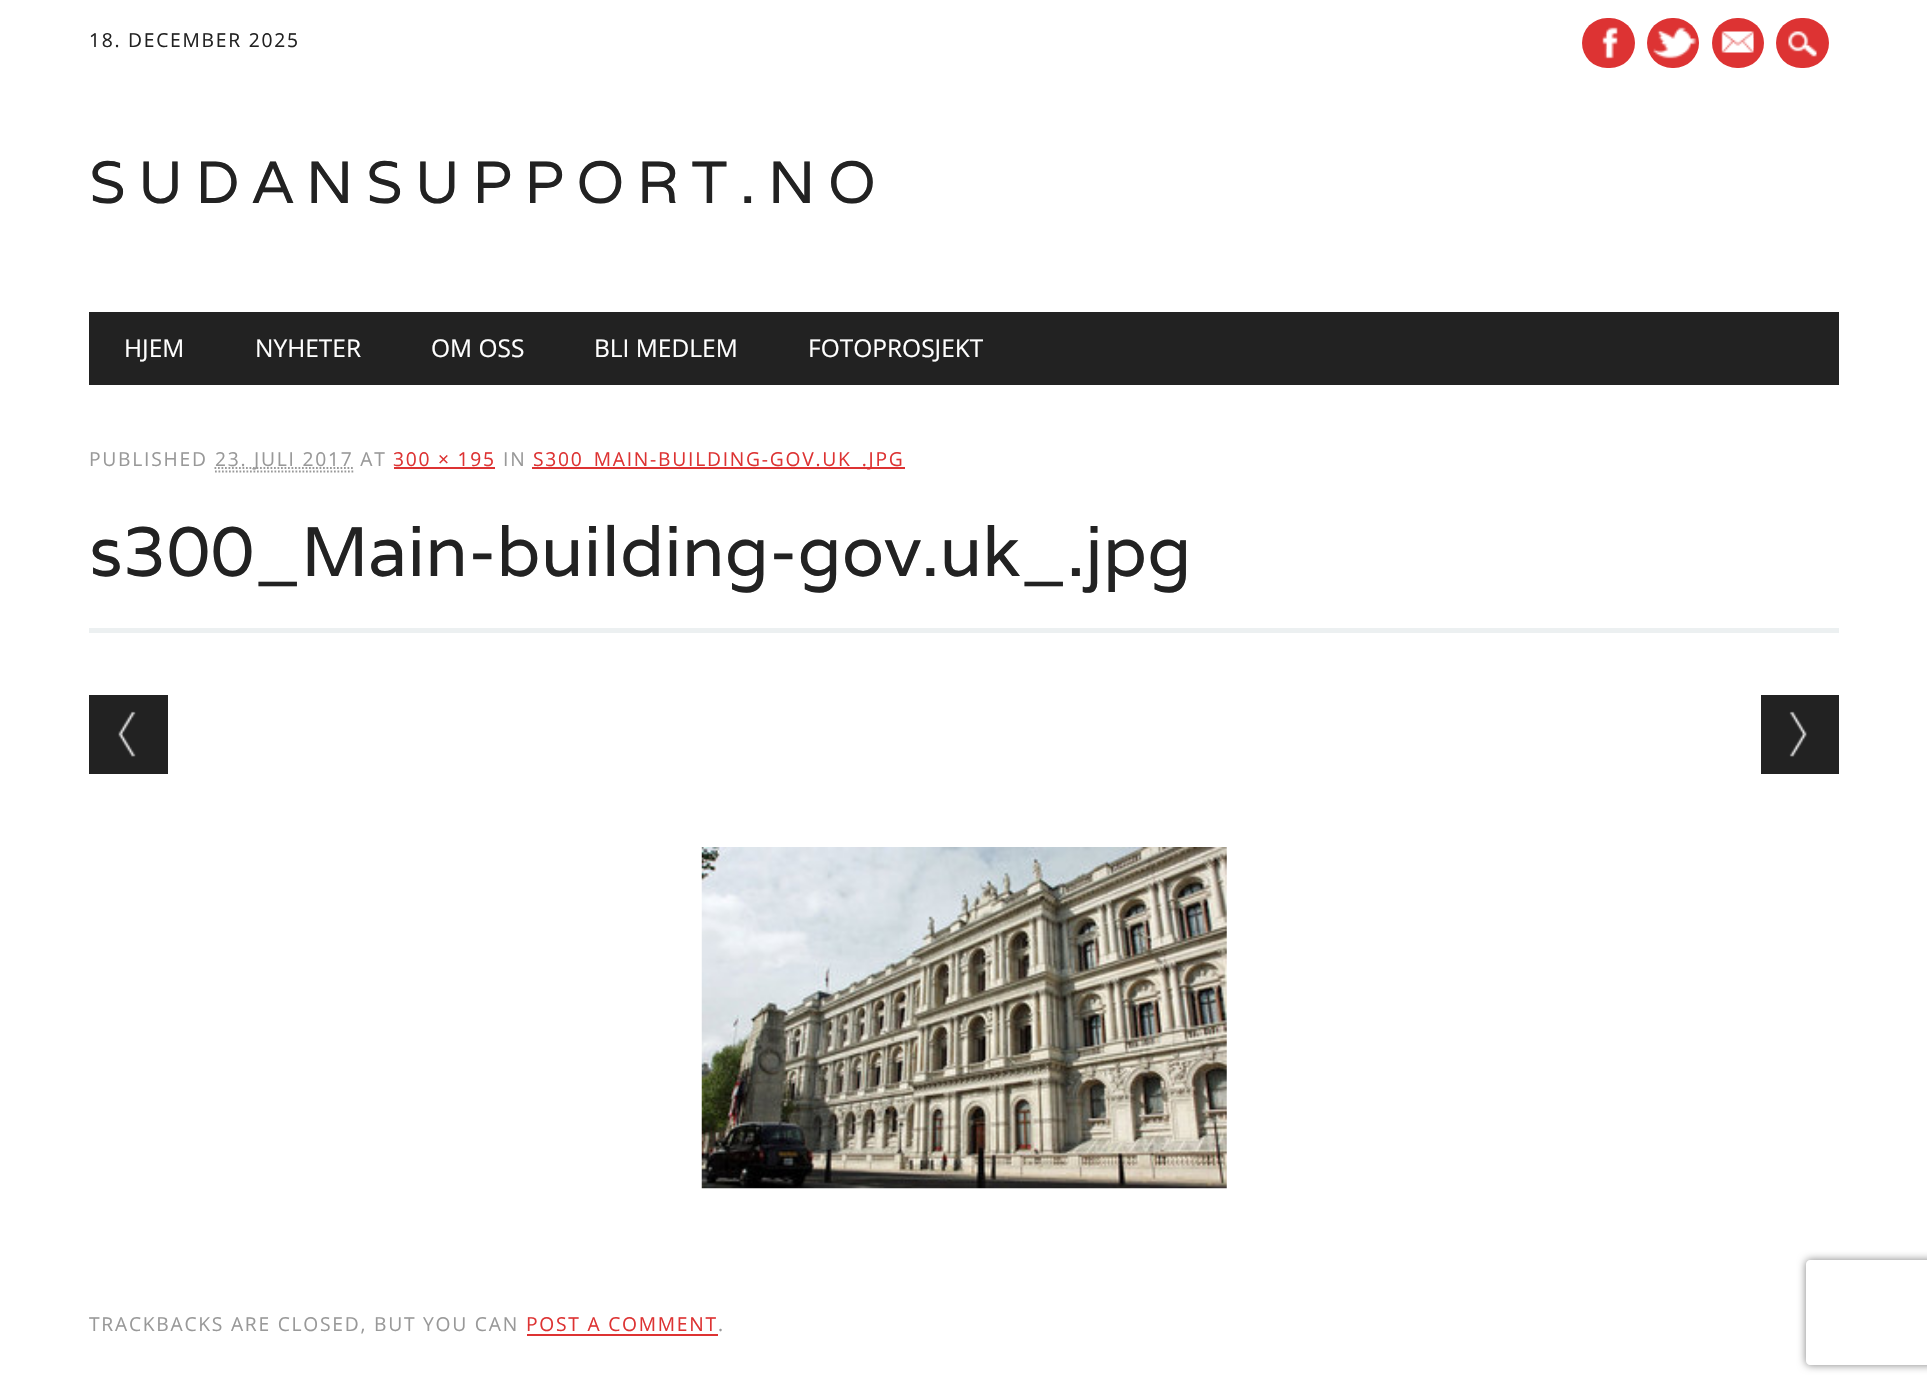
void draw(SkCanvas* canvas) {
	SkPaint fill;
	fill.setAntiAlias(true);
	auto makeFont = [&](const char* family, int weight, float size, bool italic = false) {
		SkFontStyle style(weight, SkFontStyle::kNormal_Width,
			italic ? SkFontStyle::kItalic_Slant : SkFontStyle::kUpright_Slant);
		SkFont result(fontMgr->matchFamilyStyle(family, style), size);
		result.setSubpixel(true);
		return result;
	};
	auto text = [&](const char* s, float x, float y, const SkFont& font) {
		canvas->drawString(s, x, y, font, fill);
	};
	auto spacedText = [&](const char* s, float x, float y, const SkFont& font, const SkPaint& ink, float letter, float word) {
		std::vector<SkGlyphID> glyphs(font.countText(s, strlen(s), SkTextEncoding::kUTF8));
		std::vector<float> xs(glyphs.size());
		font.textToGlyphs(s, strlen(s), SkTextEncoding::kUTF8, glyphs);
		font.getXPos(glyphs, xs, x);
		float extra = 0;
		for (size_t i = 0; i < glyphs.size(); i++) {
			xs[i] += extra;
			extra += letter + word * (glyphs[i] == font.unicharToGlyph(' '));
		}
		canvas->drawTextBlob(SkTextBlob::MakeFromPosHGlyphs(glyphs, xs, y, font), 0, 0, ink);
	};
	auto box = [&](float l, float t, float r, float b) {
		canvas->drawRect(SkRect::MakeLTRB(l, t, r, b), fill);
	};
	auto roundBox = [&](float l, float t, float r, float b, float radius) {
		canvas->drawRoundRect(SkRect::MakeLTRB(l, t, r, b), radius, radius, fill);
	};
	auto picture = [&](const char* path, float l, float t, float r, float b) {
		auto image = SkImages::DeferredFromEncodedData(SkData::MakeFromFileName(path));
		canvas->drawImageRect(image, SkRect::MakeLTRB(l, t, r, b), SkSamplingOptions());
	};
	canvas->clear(0xFFFFFFFF);
	fill.setColor(0xFFDD3333);
	roundBox(1582, 18, 1635, 68, 25);
	picture("image0.png", 1602, 27, 1618, 59);
	roundBox(1647, 18, 1699, 68, 25);
	picture("image1.png", 1653, 27, 1697, 59);
	roundBox(1712, 18, 1764, 68, 25);
	picture("image2.png", 1721, 31, 1754, 53);
	roundBox(1776, 18, 1829, 68, 25);
	picture("image3.png", 1788, 31, 1817, 57);
	fill.setColor(0xFF222222);
	box(89, 312, 1839, 385);
	fill.setStyle(SkPaint::kStroke_Style);
	fill.setStrokeWidth(1.8f);
	fill.setColor(0xFF999999);
	fill.setPathEffect(SkDashPathEffect::Make({{1.75f, 1.75f}}, 0));
	canvas->drawPath(SkPathBuilder().moveTo(215, 471.5f).lineTo(353.5f, 471.5f).detach(), fill);
	fill.setPathEffect(nullptr);
	fill.setPathEffect(SkDashPathEffect::Make({{1.75f, 1.75f}}, 0));
	canvas->drawPath(SkPathBuilder().moveTo(214.5f, 468).lineTo(353, 468).detach(), fill);
	fill.setPathEffect(nullptr);
	fill.setStyle(SkPaint::kFill_Style);
	fill.setColor(0xFFDD3333);
	box(394, 467, 495, 469);
	box(532, 467, 905, 469);
	fill.setColor(0xFFECF0F1);
	box(89, 628, 1839, 633);
	fill.setColor(0xFF222222);
	box(89, 695, 168, 774);
	picture("image4.png", 118, 711, 136, 757);
	box(1761, 695, 1839, 774);
	picture("image5.png", 1789, 711, 1807, 757);
	picture("image6.png", 701, 847, 1227, 1189);
	fill.setColor(0xFFDD3333);
	box(527, 1334, 718, 1336);
	canvas->save();
	canvas->clipPath(SkPathBuilder(SkPathFillType::kEvenOdd).moveTo(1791, 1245).lineTo(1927, 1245).lineTo(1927, 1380).lineTo(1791, 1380).close().moveTo(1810, 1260).lineTo(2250, 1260).cubicTo(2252, 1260, 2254, 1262, 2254, 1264).lineTo(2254, 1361).cubicTo(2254, 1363, 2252, 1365, 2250, 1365).lineTo(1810, 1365).cubicTo(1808, 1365, 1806, 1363, 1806, 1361).lineTo(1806, 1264).cubicTo(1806, 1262, 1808, 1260, 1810, 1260).close().detach(), true);
	fill.setColor(0xFF808080);
	fill.setMaskFilter(SkMaskFilter::MakeBlur(kNormal_SkBlurStyle, 4.5f));
	canvas->drawRoundRect(SkRect::MakeLTRB(1806, 1260, 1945, 1365), 4, 4, fill);
	fill.setMaskFilter(nullptr);
	canvas->restore();
	auto font1 = makeFont("Open Sans", 400, 19.25f);
	fill.setColor(0xFF222222);
	spacedText("18. DECEMBER 2025", 89, 47, font1, fill, 1.75f, 0);
	auto font2 = makeFont("Varela", 400, 59.5f);
	spacedText("SUDANSUPPORT.NO", 89, 203, font2, fill, 12.25f, 0);
	auto font3 = makeFont("Open Sans", 400, 24.5f);
	fill.setColor(0xFFFFFFFF);
	text("HJEM", 124, 357, font3);
	text("NYHETER", 255, 357, font3);
	text("OM OSS", 431, 357, font3);
	text("BLI MEDLEM", 594, 357, font3);
	text("FOTOPROSJEKT", 808, 357, font3);
	fill.setColor(0xFF999999);
	spacedText("PUBLISHED", 89, 466, font1, fill, 1.75f, 0);
	spacedText("23. JULI 2017 AT", 215, 466, font1, fill, 1.75f, 0);
	fill.setColor(0xFFDD3333);
	spacedText("300 × 195", 393, 466, font1, fill, 1.75f, 0);
	fill.setColor(0xFF999999);
	spacedText("IN", 503, 466, font1, fill, 1.75f, 0);
	fill.setColor(0xFFDD3333);
	spacedText("S300_MAIN-BUILDING-GOV.UK_.JPG", 533, 466, font1, fill, 1.75f, 0);
	auto font4 = makeFont("Varela", 400, 70);
	fill.setColor(0xFF222222);
	text("s300_Main-building-gov.uk_.jpg", 89, 576, font4);
	fill.setColor(0xFF999999);
	spacedText("TRACKBACKS ARE CLOSED, BUT YOU CAN", 89, 1331, font1, fill, 1.75f, 0);
	fill.setColor(0xFFDD3333);
	spacedText("POST A COMMENT", 526, 1331, font1, fill, 1.75f, 0);
	fill.setColor(0xFF999999);
	spacedText(".", 718, 1331, font1, fill, 1.75f, 0);
}
